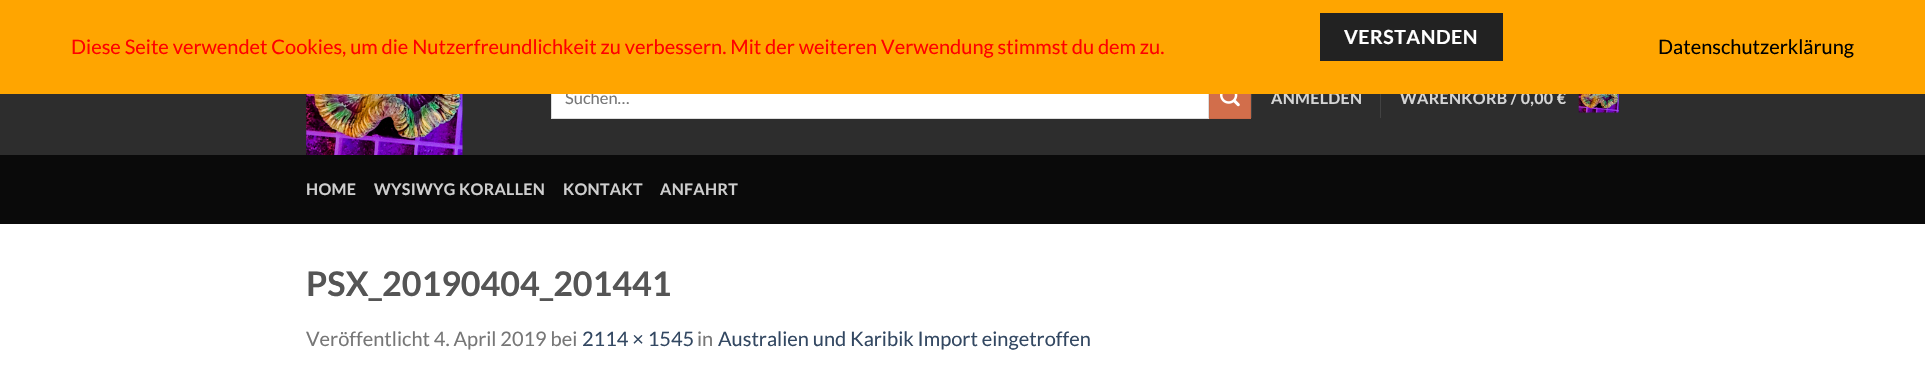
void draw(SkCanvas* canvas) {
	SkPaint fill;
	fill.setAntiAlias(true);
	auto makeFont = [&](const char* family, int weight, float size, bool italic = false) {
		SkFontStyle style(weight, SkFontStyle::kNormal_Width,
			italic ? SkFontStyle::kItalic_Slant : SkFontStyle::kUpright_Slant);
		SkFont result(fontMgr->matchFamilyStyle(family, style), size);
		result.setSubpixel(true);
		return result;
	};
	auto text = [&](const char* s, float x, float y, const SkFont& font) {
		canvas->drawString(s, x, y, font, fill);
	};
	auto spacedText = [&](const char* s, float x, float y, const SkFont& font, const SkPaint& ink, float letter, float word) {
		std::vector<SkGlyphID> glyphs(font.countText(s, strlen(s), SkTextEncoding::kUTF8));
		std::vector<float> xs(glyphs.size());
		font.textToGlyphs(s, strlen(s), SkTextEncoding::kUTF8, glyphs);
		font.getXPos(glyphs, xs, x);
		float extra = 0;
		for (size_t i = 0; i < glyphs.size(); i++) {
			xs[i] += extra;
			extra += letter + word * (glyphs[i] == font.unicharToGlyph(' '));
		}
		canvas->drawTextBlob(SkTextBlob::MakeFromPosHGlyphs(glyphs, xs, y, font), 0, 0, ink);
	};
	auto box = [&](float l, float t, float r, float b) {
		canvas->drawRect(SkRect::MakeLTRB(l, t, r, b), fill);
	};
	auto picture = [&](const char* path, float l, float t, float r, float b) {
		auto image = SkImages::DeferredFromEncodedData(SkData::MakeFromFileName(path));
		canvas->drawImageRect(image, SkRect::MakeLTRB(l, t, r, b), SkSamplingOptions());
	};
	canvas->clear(0xFFFFFFFF);
	fill.setColor(0xFF2D2D2D);
	box(0, 94, 1925, 155);
	picture("image0.png", 306, 94, 463, 155);
	fill.setColor(0xFFFFFFFF);
	box(552, 94, 1208, 118);
	fill.setStyle(SkPaint::kStroke_Style);
	fill.setStrokeWidth(1);
	fill.setColor(0xFFDDDDDD);
	canvas->drawRect(SkRect::MakeLTRB(551.5f, 78.5f, 1208.5f, 118.5f), fill);
	fill.setStyle(SkPaint::kFill_Style);
	fill.setColor(0xFFD26E4B);
	box(1210, 94, 1250, 118);
	fill.setStyle(SkPaint::kStroke_Style);
	fill.setColor(0xFFC86947);
	canvas->drawRect(SkRect::MakeLTRB(1209.5f, 78.5f, 1250.5f, 118.5f), fill);
	picture("image1.png", 1220, 94, 1240, 107);
	fill.setStyle(SkPaint::kFill_Style);
	fill.setColor(0xFF424242);
	box(1251, 94, 1252, 118);
	box(1380, 94, 1381, 118);
	picture("image2.png", 1578, 94, 1619, 113);
	fill.setColor(0xFF0A0A0A);
	box(0, 155, 1925, 224);
	auto font1 = makeFont("Lato", 400, 16.5f);
	fill.setColor(0xFF777777);
	text("Suchen…", 565, 104, font1);
	auto font2 = makeFont("Lato", 700, 16);
	fill.setColor(0xFFD5D5D5);
	spacedText("ANMELDEN", 1271, 104, font2, fill, 0.3f, 0);
	spacedText("WARENKORB / 0,00 €", 1400, 104, font2, fill, 0.3f, 0);
	fill.setColor(0xFFFFA500);
	box(0, 0, 1925, 94);
	fill.setColor(0xFF222222);
	box(1320, 13, 1503, 61);
	auto font3 = makeFont("Lato", 700, 19.5f);
	fill.setColor(0xFFFFFFFF);
	spacedText("VERSTANDEN", 1344, 44, font3, fill, 0.5f, 0);
	auto font4 = makeFont("Lato", 400, 20);
	fill.setColor(0xFF000000);
	text("Datenschutzerklärung", 1658, 54, font4);
	fill.setColor(0xFFFF0000);
	text("Diese Seite verwendet Cookies, um die Nutzerfreundlichkeit zu verbessern. Mit der weiteren Verwendung stimmst du dem zu.", 71, 54, font4);
	fill.setColor(0xFFCECECE);
	spacedText("HOME", 306, 195, font2, fill, 0.3f, 0);
	spacedText("WYSIWYG KORALLEN", 374, 195, font2, fill, 0.3f, 0);
	spacedText("KONTAKT", 563, 195, font2, fill, 0.3f, 0);
	spacedText("ANFAHRT", 660, 195, font2, fill, 0.3f, 0);
	auto font5 = makeFont("Lato", 700, 34);
	fill.setColor(0xFF555555);
	text("PSX_20190404_201441", 306, 296, font5);
	fill.setColor(0xFF777777);
	text("Veröffentlicht 4. April 2019 bei", 306, 346, font4);
	fill.setColor(0xFF334862);
	text("2114 × 1545", 582, 346, font4);
	fill.setColor(0xFF777777);
	text("in", 697, 346, font4);
	fill.setColor(0xFF334862);
	text("Australien und Karibik Import eingetroffen", 718, 346, font4);
}
